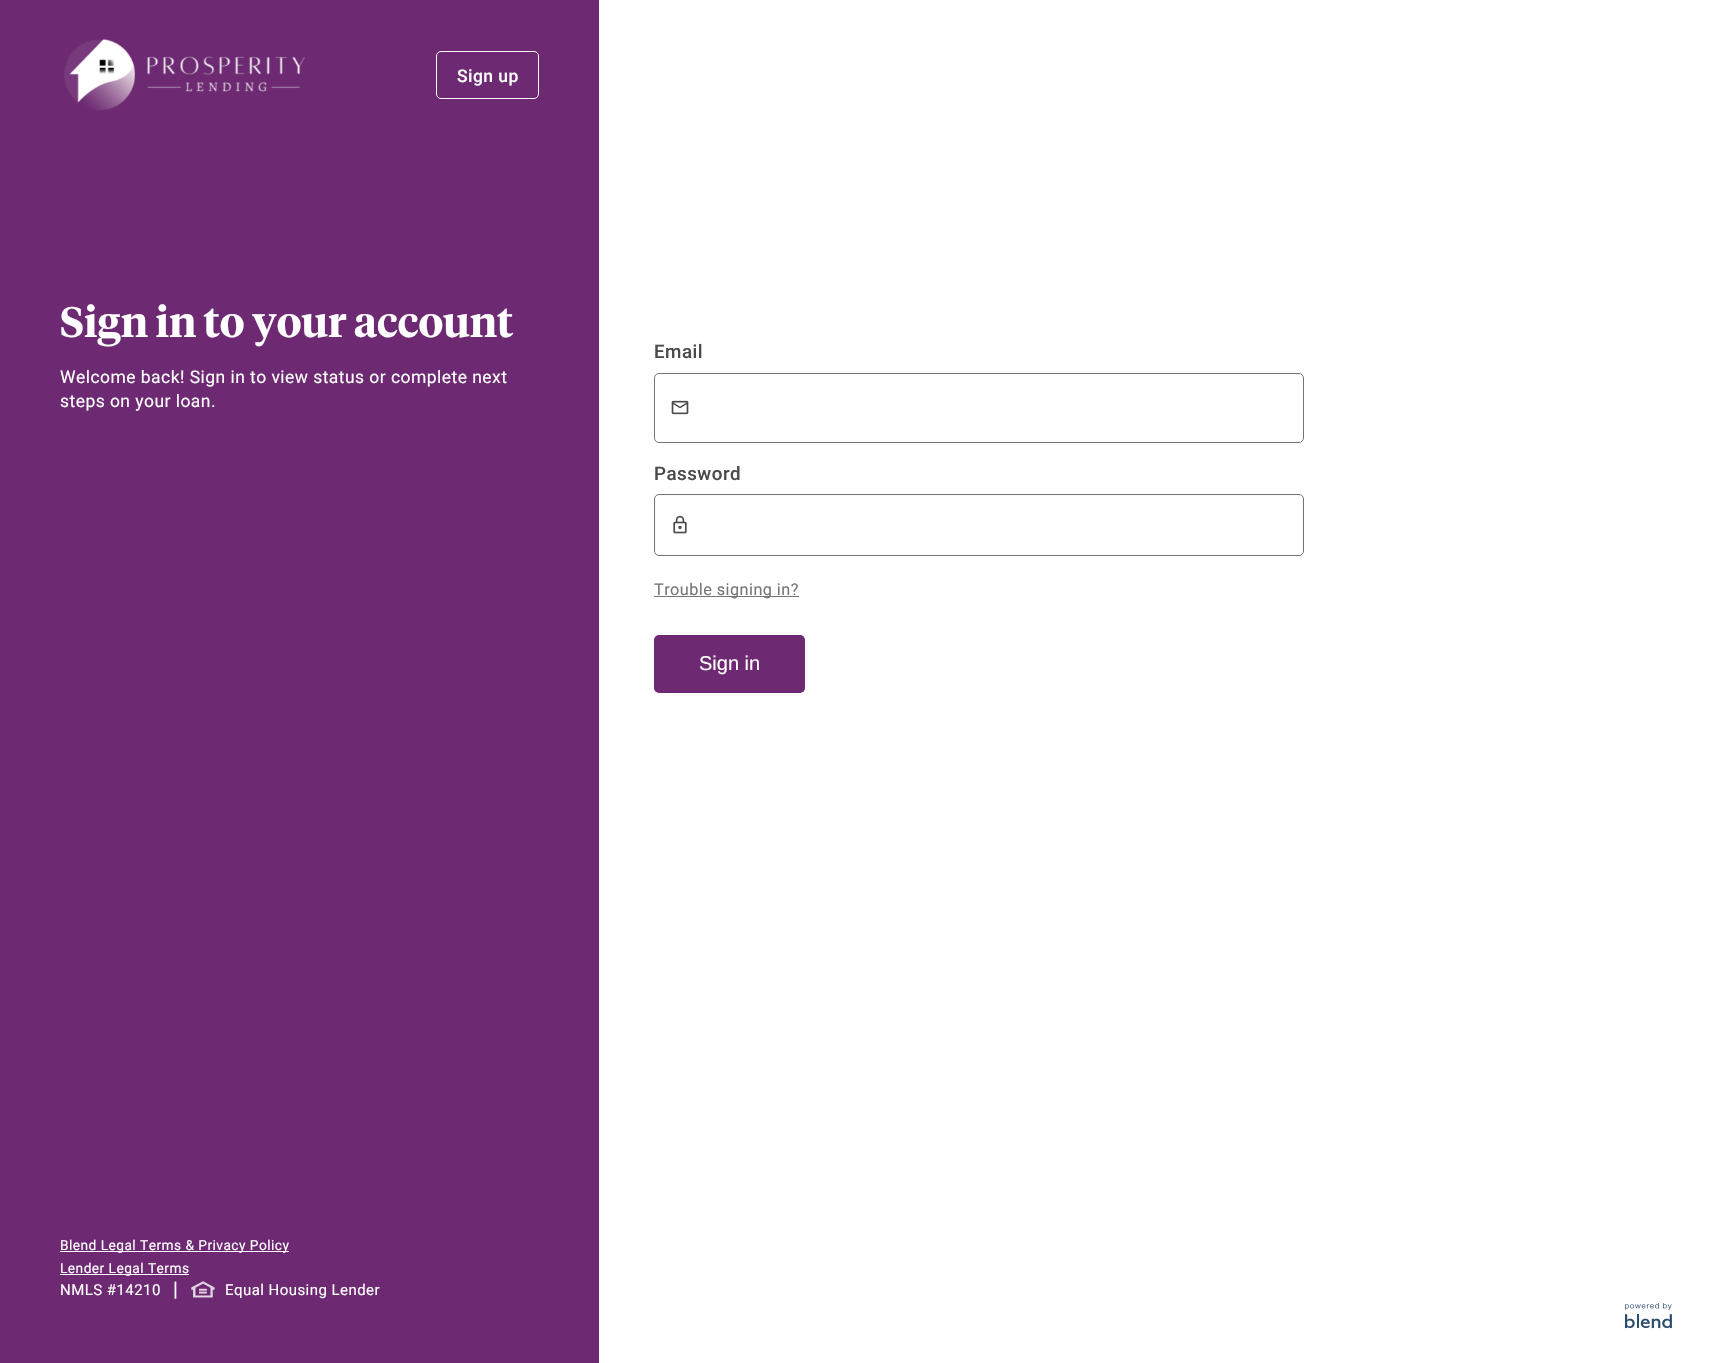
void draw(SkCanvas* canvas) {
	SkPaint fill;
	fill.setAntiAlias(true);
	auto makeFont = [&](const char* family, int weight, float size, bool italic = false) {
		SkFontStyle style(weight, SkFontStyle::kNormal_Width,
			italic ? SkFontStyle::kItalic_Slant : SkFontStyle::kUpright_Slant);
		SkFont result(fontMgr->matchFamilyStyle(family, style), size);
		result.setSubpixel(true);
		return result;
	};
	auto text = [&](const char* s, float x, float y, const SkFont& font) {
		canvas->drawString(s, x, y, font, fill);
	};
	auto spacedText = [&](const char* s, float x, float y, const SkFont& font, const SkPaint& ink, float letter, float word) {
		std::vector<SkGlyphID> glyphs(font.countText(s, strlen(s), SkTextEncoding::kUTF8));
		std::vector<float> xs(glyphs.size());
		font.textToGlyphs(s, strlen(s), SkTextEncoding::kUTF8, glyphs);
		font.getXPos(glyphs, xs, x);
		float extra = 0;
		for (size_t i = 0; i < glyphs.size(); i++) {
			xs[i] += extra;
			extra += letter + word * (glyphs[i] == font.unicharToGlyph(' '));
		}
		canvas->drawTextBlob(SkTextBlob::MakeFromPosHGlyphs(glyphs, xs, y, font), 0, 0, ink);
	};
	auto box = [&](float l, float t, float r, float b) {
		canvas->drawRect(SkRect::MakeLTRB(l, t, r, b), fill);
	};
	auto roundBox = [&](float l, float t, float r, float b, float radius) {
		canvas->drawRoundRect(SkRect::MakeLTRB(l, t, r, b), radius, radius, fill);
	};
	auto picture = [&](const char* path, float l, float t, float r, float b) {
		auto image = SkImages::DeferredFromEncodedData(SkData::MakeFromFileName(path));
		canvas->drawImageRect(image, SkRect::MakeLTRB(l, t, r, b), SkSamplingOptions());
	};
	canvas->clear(0xFF6D2A72);
	picture("image0.png", 64, 38, 305, 111);
	fill.setStyle(SkPaint::kStroke_Style);
	fill.setStrokeWidth(1);
	fill.setColor(0xFFFFFFFF);
	canvas->drawRoundRect(SkRect::MakeLTRB(436.5f, 51.5f, 538.5f, 98.5f), 4.5f, 4.5f, fill);
	fill.setStyle(SkPaint::kFill_Style);
	box(60, 1251, 289, 1252);
	box(60, 1274, 189, 1275);
	picture("image1.png", 191, 1281, 215, 1298);
	box(599, 0, 1709, 1363);
	fill.setStyle(SkPaint::kStroke_Style);
	fill.setColor(0xFF757575);
	canvas->drawRoundRect(SkRect::MakeLTRB(654.5f, 373.5f, 1303.5f, 442.5f), 4.5f, 4.5f, fill);
	picture("image2.png", 671, 400, 689, 415);
	fill.setColor(0xFFFAFAFA);
	canvas->drawRoundRect(SkRect::MakeLTRB(655.5f, 495.5f, 1302.5f, 554.5f), 3.5f, 3.5f, fill);
	fill.setColor(0xFF757575);
	canvas->drawRoundRect(SkRect::MakeLTRB(654.5f, 494.5f, 1303.5f, 555.5f), 4.5f, 4.5f, fill);
	picture("image3.png", 673, 515, 687, 534);
	fill.setStyle(SkPaint::kFill_Style);
	box(654, 596, 799, 597);
	fill.setColor(0xFF6D2A72);
	roundBox(654, 635, 805, 693, 5);
	picture("image4.png", 1625, 1303, 1672, 1329);
	auto font1 = makeFont("Roboto", 500, 17.5f);
	fill.setColor(0xFFFFFFFF);
	spacedText("Sign up", 457, 82, font1, fill, 0.45f, 0);
	auto font2 = makeFont("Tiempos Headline", 600, 42.5f);
	spacedText("Sign in to your account", 60, 337, font2, fill, 0.1f, -0.5f);
	auto font3 = makeFont("Roboto", 400, 17.5f);
	spacedText("Welcome back! Sign in to view status or complete next", 60, 383, font3, fill, 0.45f, 0);
	spacedText("steps on your loan.", 60, 407, font3, fill, 0.45f, 0);
	auto font4 = makeFont("Roboto", 400, 13.75f);
	spacedText("Blend Legal Terms & Privacy Policy", 60, 1250, font4, fill, 0.45f, 0);
	spacedText("Lender Legal Terms", 60, 1273, font4, fill, 0.45f, 0);
	auto font5 = makeFont("Roboto", 400, 15);
	spacedText("NMLS #14210", 60, 1295, font5, fill, 0.45f, 0);
	auto font6 = makeFont("Roboto", 400, 20);
	spacedText("|", 173, 1296, font6, fill, 0.45f, 0);
	spacedText("Equal Housing Lender", 225, 1295, font5, fill, 0.45f, 0);
	auto font7 = makeFont("Roboto", 500, 18.75f);
	fill.setColor(0xFF4A4A4A);
	spacedText("Email", 654, 358, font7, fill, 0.5f, 0);
	spacedText("Password", 654, 480, font7, fill, 0.5f, 0);
	auto font8 = makeFont("Roboto", 400, 16.25f);
	fill.setColor(0xFF757575);
	spacedText("Trouble signing in?", 654, 595, font8, fill, 0.45f, 0);
	auto font9 = makeFont("Liberation Sans", 400, 20);
	fill.setColor(0xFFFFFFFF);
	text("Sign in", 699, 670, font9);
}
